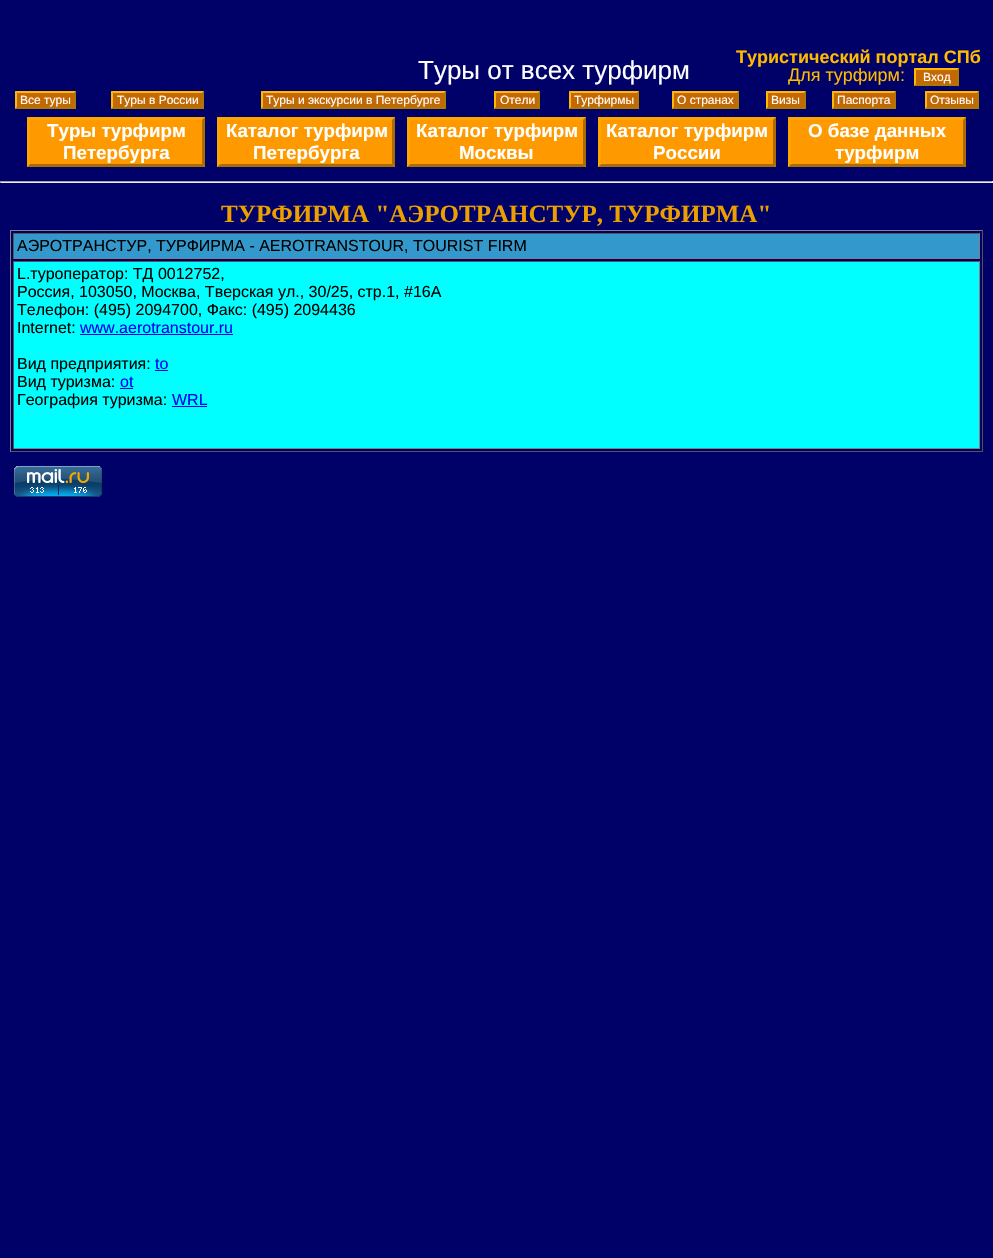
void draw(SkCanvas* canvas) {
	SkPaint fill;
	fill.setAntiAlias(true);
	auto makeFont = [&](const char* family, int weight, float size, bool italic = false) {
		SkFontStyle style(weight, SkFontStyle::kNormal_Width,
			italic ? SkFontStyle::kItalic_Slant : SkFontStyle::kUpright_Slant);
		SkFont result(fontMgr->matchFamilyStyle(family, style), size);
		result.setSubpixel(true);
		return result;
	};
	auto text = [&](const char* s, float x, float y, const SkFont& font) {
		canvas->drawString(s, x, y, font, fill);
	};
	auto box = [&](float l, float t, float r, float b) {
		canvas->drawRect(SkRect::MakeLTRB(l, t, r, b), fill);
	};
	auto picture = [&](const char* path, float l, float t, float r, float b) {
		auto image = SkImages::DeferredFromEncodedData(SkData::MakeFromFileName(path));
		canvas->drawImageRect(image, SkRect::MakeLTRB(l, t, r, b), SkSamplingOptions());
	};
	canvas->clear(0xFF000069);
	fill.setColor(0xFFC46802);
	box(914, 68, 959, 86);
	fill.setColor(0xFFFDB906);
	canvas->drawPath(SkPathBuilder().moveTo(914, 68).lineTo(959, 68).lineTo(957, 70).lineTo(916, 70).close().detach(), fill);
	fill.setColor(0xFFA97B04);
	canvas->drawPath(SkPathBuilder().moveTo(959, 68).lineTo(959, 86).lineTo(957, 84).lineTo(957, 70).close().detach(), fill);
	canvas->drawPath(SkPathBuilder().moveTo(959, 86).lineTo(914, 86).lineTo(916, 84).lineTo(957, 84).close().detach(), fill);
	fill.setColor(0xFFFDB906);
	canvas->drawPath(SkPathBuilder().moveTo(914, 86).lineTo(914, 68).lineTo(916, 70).lineTo(916, 84).close().detach(), fill);
	fill.setColor(0xFFC46802);
	box(15, 91, 76, 109);
	fill.setColor(0xFFFDB906);
	canvas->drawPath(SkPathBuilder().moveTo(15, 91).lineTo(76, 91).lineTo(74, 93).lineTo(17, 93).close().detach(), fill);
	fill.setColor(0xFFA97B04);
	canvas->drawPath(SkPathBuilder().moveTo(76, 91).lineTo(76, 109).lineTo(74, 107).lineTo(74, 93).close().detach(), fill);
	canvas->drawPath(SkPathBuilder().moveTo(76, 109).lineTo(15, 109).lineTo(17, 107).lineTo(74, 107).close().detach(), fill);
	fill.setColor(0xFFFDB906);
	canvas->drawPath(SkPathBuilder().moveTo(15, 109).lineTo(15, 91).lineTo(17, 93).lineTo(17, 107).close().detach(), fill);
	fill.setColor(0xFFC46802);
	box(111, 91, 204, 109);
	fill.setColor(0xFFFDB906);
	canvas->drawPath(SkPathBuilder().moveTo(111, 91).lineTo(204, 91).lineTo(202, 93).lineTo(113, 93).close().detach(), fill);
	fill.setColor(0xFFA97B04);
	canvas->drawPath(SkPathBuilder().moveTo(204, 91).lineTo(204, 109).lineTo(202, 107).lineTo(202, 93).close().detach(), fill);
	canvas->drawPath(SkPathBuilder().moveTo(204, 109).lineTo(111, 109).lineTo(113, 107).lineTo(202, 107).close().detach(), fill);
	fill.setColor(0xFFFDB906);
	canvas->drawPath(SkPathBuilder().moveTo(111, 109).lineTo(111, 91).lineTo(113, 93).lineTo(113, 107).close().detach(), fill);
	fill.setColor(0xFFC46802);
	box(261, 91, 446, 109);
	fill.setColor(0xFFFDB906);
	canvas->drawPath(SkPathBuilder().moveTo(261, 91).lineTo(446, 91).lineTo(444, 93).lineTo(263, 93).close().detach(), fill);
	fill.setColor(0xFFA97B04);
	canvas->drawPath(SkPathBuilder().moveTo(446, 91).lineTo(446, 109).lineTo(444, 107).lineTo(444, 93).close().detach(), fill);
	canvas->drawPath(SkPathBuilder().moveTo(446, 109).lineTo(261, 109).lineTo(263, 107).lineTo(444, 107).close().detach(), fill);
	fill.setColor(0xFFFDB906);
	canvas->drawPath(SkPathBuilder().moveTo(261, 109).lineTo(261, 91).lineTo(263, 93).lineTo(263, 107).close().detach(), fill);
	fill.setColor(0xFFC46802);
	box(494, 91, 540, 109);
	fill.setColor(0xFFFDB906);
	canvas->drawPath(SkPathBuilder().moveTo(494, 91).lineTo(540, 91).lineTo(538, 93).lineTo(496, 93).close().detach(), fill);
	fill.setColor(0xFFA97B04);
	canvas->drawPath(SkPathBuilder().moveTo(540, 91).lineTo(540, 109).lineTo(538, 107).lineTo(538, 93).close().detach(), fill);
	canvas->drawPath(SkPathBuilder().moveTo(540, 109).lineTo(494, 109).lineTo(496, 107).lineTo(538, 107).close().detach(), fill);
	fill.setColor(0xFFFDB906);
	canvas->drawPath(SkPathBuilder().moveTo(494, 109).lineTo(494, 91).lineTo(496, 93).lineTo(496, 107).close().detach(), fill);
	fill.setColor(0xFFC46802);
	box(569, 91, 639, 109);
	fill.setColor(0xFFFDB906);
	canvas->drawPath(SkPathBuilder().moveTo(569, 91).lineTo(639, 91).lineTo(637, 93).lineTo(571, 93).close().detach(), fill);
	fill.setColor(0xFFA97B04);
	canvas->drawPath(SkPathBuilder().moveTo(639, 91).lineTo(639, 109).lineTo(637, 107).lineTo(637, 93).close().detach(), fill);
	canvas->drawPath(SkPathBuilder().moveTo(639, 109).lineTo(569, 109).lineTo(571, 107).lineTo(637, 107).close().detach(), fill);
	fill.setColor(0xFFFDB906);
	canvas->drawPath(SkPathBuilder().moveTo(569, 109).lineTo(569, 91).lineTo(571, 93).lineTo(571, 107).close().detach(), fill);
	fill.setColor(0xFFC46802);
	box(672, 91, 739, 109);
	fill.setColor(0xFFFDB906);
	canvas->drawPath(SkPathBuilder().moveTo(672, 91).lineTo(739, 91).lineTo(737, 93).lineTo(674, 93).close().detach(), fill);
	fill.setColor(0xFFA97B04);
	canvas->drawPath(SkPathBuilder().moveTo(739, 91).lineTo(739, 109).lineTo(737, 107).lineTo(737, 93).close().detach(), fill);
	canvas->drawPath(SkPathBuilder().moveTo(739, 109).lineTo(672, 109).lineTo(674, 107).lineTo(737, 107).close().detach(), fill);
	fill.setColor(0xFFFDB906);
	canvas->drawPath(SkPathBuilder().moveTo(672, 109).lineTo(672, 91).lineTo(674, 93).lineTo(674, 107).close().detach(), fill);
	fill.setColor(0xFFC46802);
	box(766, 91, 806, 109);
	fill.setColor(0xFFFDB906);
	canvas->drawPath(SkPathBuilder().moveTo(766, 91).lineTo(806, 91).lineTo(804, 93).lineTo(768, 93).close().detach(), fill);
	fill.setColor(0xFFA97B04);
	canvas->drawPath(SkPathBuilder().moveTo(806, 91).lineTo(806, 109).lineTo(804, 107).lineTo(804, 93).close().detach(), fill);
	canvas->drawPath(SkPathBuilder().moveTo(806, 109).lineTo(766, 109).lineTo(768, 107).lineTo(804, 107).close().detach(), fill);
	fill.setColor(0xFFFDB906);
	canvas->drawPath(SkPathBuilder().moveTo(766, 109).lineTo(766, 91).lineTo(768, 93).lineTo(768, 107).close().detach(), fill);
	fill.setColor(0xFFC46802);
	box(832, 91, 896, 109);
	fill.setColor(0xFFFDB906);
	canvas->drawPath(SkPathBuilder().moveTo(832, 91).lineTo(896, 91).lineTo(894, 93).lineTo(834, 93).close().detach(), fill);
	fill.setColor(0xFFA97B04);
	canvas->drawPath(SkPathBuilder().moveTo(896, 91).lineTo(896, 109).lineTo(894, 107).lineTo(894, 93).close().detach(), fill);
	canvas->drawPath(SkPathBuilder().moveTo(896, 109).lineTo(832, 109).lineTo(834, 107).lineTo(894, 107).close().detach(), fill);
	fill.setColor(0xFFFDB906);
	canvas->drawPath(SkPathBuilder().moveTo(832, 109).lineTo(832, 91).lineTo(834, 93).lineTo(834, 107).close().detach(), fill);
	fill.setColor(0xFFC46802);
	box(925, 91, 979, 109);
	fill.setColor(0xFFFDB906);
	canvas->drawPath(SkPathBuilder().moveTo(925, 91).lineTo(979, 91).lineTo(977, 93).lineTo(927, 93).close().detach(), fill);
	fill.setColor(0xFFA97B04);
	canvas->drawPath(SkPathBuilder().moveTo(979, 91).lineTo(979, 109).lineTo(977, 107).lineTo(977, 93).close().detach(), fill);
	canvas->drawPath(SkPathBuilder().moveTo(979, 109).lineTo(925, 109).lineTo(927, 107).lineTo(977, 107).close().detach(), fill);
	fill.setColor(0xFFFDB906);
	canvas->drawPath(SkPathBuilder().moveTo(925, 109).lineTo(925, 91).lineTo(927, 93).lineTo(927, 107).close().detach(), fill);
	fill.setColor(0xFFFF9900);
	box(27, 117, 205, 167);
	fill.setColor(0xFFFFA500);
	canvas->drawPath(SkPathBuilder().moveTo(27, 117).lineTo(205, 117).lineTo(202, 120).lineTo(30, 120).close().detach(), fill);
	fill.setColor(0xFFAA6E00);
	canvas->drawPath(SkPathBuilder().moveTo(205, 117).lineTo(205, 167).lineTo(202, 164).lineTo(202, 120).close().detach(), fill);
	canvas->drawPath(SkPathBuilder().moveTo(205, 167).lineTo(27, 167).lineTo(30, 164).lineTo(202, 164).close().detach(), fill);
	fill.setColor(0xFFFFA500);
	canvas->drawPath(SkPathBuilder().moveTo(27, 167).lineTo(27, 117).lineTo(30, 120).lineTo(30, 164).close().detach(), fill);
	fill.setColor(0xFFFF9900);
	box(217, 117, 395, 167);
	fill.setColor(0xFFFFA500);
	canvas->drawPath(SkPathBuilder().moveTo(217, 117).lineTo(395, 117).lineTo(392, 120).lineTo(220, 120).close().detach(), fill);
	fill.setColor(0xFFAA6E00);
	canvas->drawPath(SkPathBuilder().moveTo(395, 117).lineTo(395, 167).lineTo(392, 164).lineTo(392, 120).close().detach(), fill);
	canvas->drawPath(SkPathBuilder().moveTo(395, 167).lineTo(217, 167).lineTo(220, 164).lineTo(392, 164).close().detach(), fill);
	fill.setColor(0xFFFFA500);
	canvas->drawPath(SkPathBuilder().moveTo(217, 167).lineTo(217, 117).lineTo(220, 120).lineTo(220, 164).close().detach(), fill);
	fill.setColor(0xFFFF9900);
	box(407, 117, 586, 167);
	fill.setColor(0xFFFFA500);
	canvas->drawPath(SkPathBuilder().moveTo(407, 117).lineTo(586, 117).lineTo(583, 120).lineTo(410, 120).close().detach(), fill);
	fill.setColor(0xFFAA6E00);
	canvas->drawPath(SkPathBuilder().moveTo(586, 117).lineTo(586, 167).lineTo(583, 164).lineTo(583, 120).close().detach(), fill);
	canvas->drawPath(SkPathBuilder().moveTo(586, 167).lineTo(407, 167).lineTo(410, 164).lineTo(583, 164).close().detach(), fill);
	fill.setColor(0xFFFFA500);
	canvas->drawPath(SkPathBuilder().moveTo(407, 167).lineTo(407, 117).lineTo(410, 120).lineTo(410, 164).close().detach(), fill);
	fill.setColor(0xFFFF9900);
	box(598, 117, 776, 167);
	fill.setColor(0xFFFFA500);
	canvas->drawPath(SkPathBuilder().moveTo(598, 117).lineTo(776, 117).lineTo(773, 120).lineTo(601, 120).close().detach(), fill);
	fill.setColor(0xFFAA6E00);
	canvas->drawPath(SkPathBuilder().moveTo(776, 117).lineTo(776, 167).lineTo(773, 164).lineTo(773, 120).close().detach(), fill);
	canvas->drawPath(SkPathBuilder().moveTo(776, 167).lineTo(598, 167).lineTo(601, 164).lineTo(773, 164).close().detach(), fill);
	fill.setColor(0xFFFFA500);
	canvas->drawPath(SkPathBuilder().moveTo(598, 167).lineTo(598, 117).lineTo(601, 120).lineTo(601, 164).close().detach(), fill);
	fill.setColor(0xFFFF9900);
	box(788, 117, 966, 167);
	fill.setColor(0xFFFFA500);
	canvas->drawPath(SkPathBuilder().moveTo(788, 117).lineTo(966, 117).lineTo(963, 120).lineTo(791, 120).close().detach(), fill);
	fill.setColor(0xFFAA6E00);
	canvas->drawPath(SkPathBuilder().moveTo(966, 117).lineTo(966, 167).lineTo(963, 164).lineTo(963, 120).close().detach(), fill);
	canvas->drawPath(SkPathBuilder().moveTo(966, 167).lineTo(788, 167).lineTo(791, 164).lineTo(963, 164).close().detach(), fill);
	fill.setColor(0xFFFFA500);
	canvas->drawPath(SkPathBuilder().moveTo(788, 167).lineTo(788, 117).lineTo(791, 120).lineTo(791, 164).close().detach(), fill);
	fill.setColor(0xFF9F9F9F);
	box(0, 181, 993, 182);
	fill.setColor(0xFFEEEEEE);
	box(992, 181, 993, 183);
	box(0, 182, 993, 183);
	fill.setColor(0xFF9F9F9F);
	box(0, 181, 1, 183);
	fill.setColor(0xFF808080);
	box(10, 230, 983, 231);
	fill.setColor(0xFF555555);
	box(982, 230, 983, 452);
	box(10, 451, 983, 452);
	fill.setColor(0xFF808080);
	box(10, 230, 11, 452);
	fill.setColor(0xFF3399CC);
	box(14, 234, 979, 258);
	fill.setColor(0xFF555555);
	box(13, 233, 980, 234);
	fill.setColor(0xFF808080);
	box(979, 233, 980, 259);
	box(13, 258, 980, 259);
	fill.setColor(0xFF555555);
	box(13, 233, 14, 259);
	fill.setColor(0xFF00FFFF);
	box(14, 262, 979, 448);
	fill.setColor(0xFF555555);
	box(13, 261, 980, 262);
	fill.setColor(0xFF808080);
	box(979, 261, 980, 449);
	box(13, 448, 980, 449);
	fill.setColor(0xFF555555);
	box(13, 261, 14, 449);
	fill.setColor(0xFF0000EE);
	box(80, 334, 233, 335);
	box(155, 370, 168, 371);
	box(120, 388, 133, 389);
	box(172, 406, 207, 407);
	picture("image0.png", 14, 466, 102, 497);
	auto font1 = makeFont("Liberation Sans", 700, 18);
	fill.setColor(0xFFFFBB00);
	text("Туристический портал СПб", 736, 63, font1);
	auto font2 = makeFont("Liberation Sans", 400, 26);
	fill.setColor(0xFFFFFFFF);
	text("Туры от всех турфирм", 418, 79, font2);
	auto font3 = makeFont("Liberation Sans", 400, 18);
	fill.setColor(0xFFFFBB00);
	text("Для турфирм:", 788, 81, font3);
	auto font4 = makeFont("Liberation Sans", 400, 12);
	fill.setColor(0xFFFFFFFF);
	text("Вход", 923, 81, font4);
	text("Все туры", 20, 104, font4);
	text("Туры в России", 117, 104, font4);
	text("Туры и экскурсии в Петербурге", 266, 104, font4);
	text("Отели", 500, 104, font4);
	text("Турфирмы", 574, 104, font4);
	text("О странах", 677, 104, font4);
	text("Визы", 771, 104, font4);
	text("Паспорта", 837, 104, font4);
	text("Отзывы", 930, 104, font4);
	auto font5 = makeFont("Liberation Sans", 700, 18.75f);
	text("Туры турфирм", 47, 137, font5);
	text("Петербурга", 63, 159, font5);
	text("Каталог турфирм", 226, 137, font5);
	text("Петербурга", 253, 159, font5);
	text("Каталог турфирм", 416, 137, font5);
	text("Москвы", 459, 159, font5);
	text("Каталог турфирм", 606, 137, font5);
	text("России", 653, 159, font5);
	text("О базе данных", 808, 137, font5);
	text("турфирм", 835, 159, font5);
	auto font6 = makeFont("Liberation Serif", 700, 25);
	fill.setColor(0xFFEB9F01);
	text("ТУРФИРМА \"АЭРОТРАНСТУР, ТУРФИРМА\"", 221, 222, font6);
	auto font7 = makeFont("Liberation Sans", 400, 16);
	fill.setColor(0xFF000000);
	text("АЭРОТРАНСТУР, ТУРФИРМА - AEROTRANSTOUR, TOURIST FIRM", 17, 251, font7);
	text("L.туроператор: ТД 0012752,", 17, 279, font7);
	text("Россия, 103050, Москва, Тверская ул., 30/25, стр.1, #16А", 17, 297, font7);
	text("Телефон: (495) 2094700, Факс: (495) 2094436", 17, 315, font7);
	text("Internet:", 17, 333, font7);
	fill.setColor(0xFF0000EE);
	text("www.aerotranstour.ru", 80, 333, font7);
	fill.setColor(0xFF000000);
	text("Вид предприятия:", 17, 369, font7);
	fill.setColor(0xFF0000EE);
	text("to", 155, 369, font7);
	fill.setColor(0xFF000000);
	text("Вид туризма:", 17, 387, font7);
	fill.setColor(0xFF0000EE);
	text("ot", 120, 387, font7);
	fill.setColor(0xFF000000);
	text("География туризма:", 17, 405, font7);
	fill.setColor(0xFF0000EE);
	text("WRL", 172, 405, font7);
}
